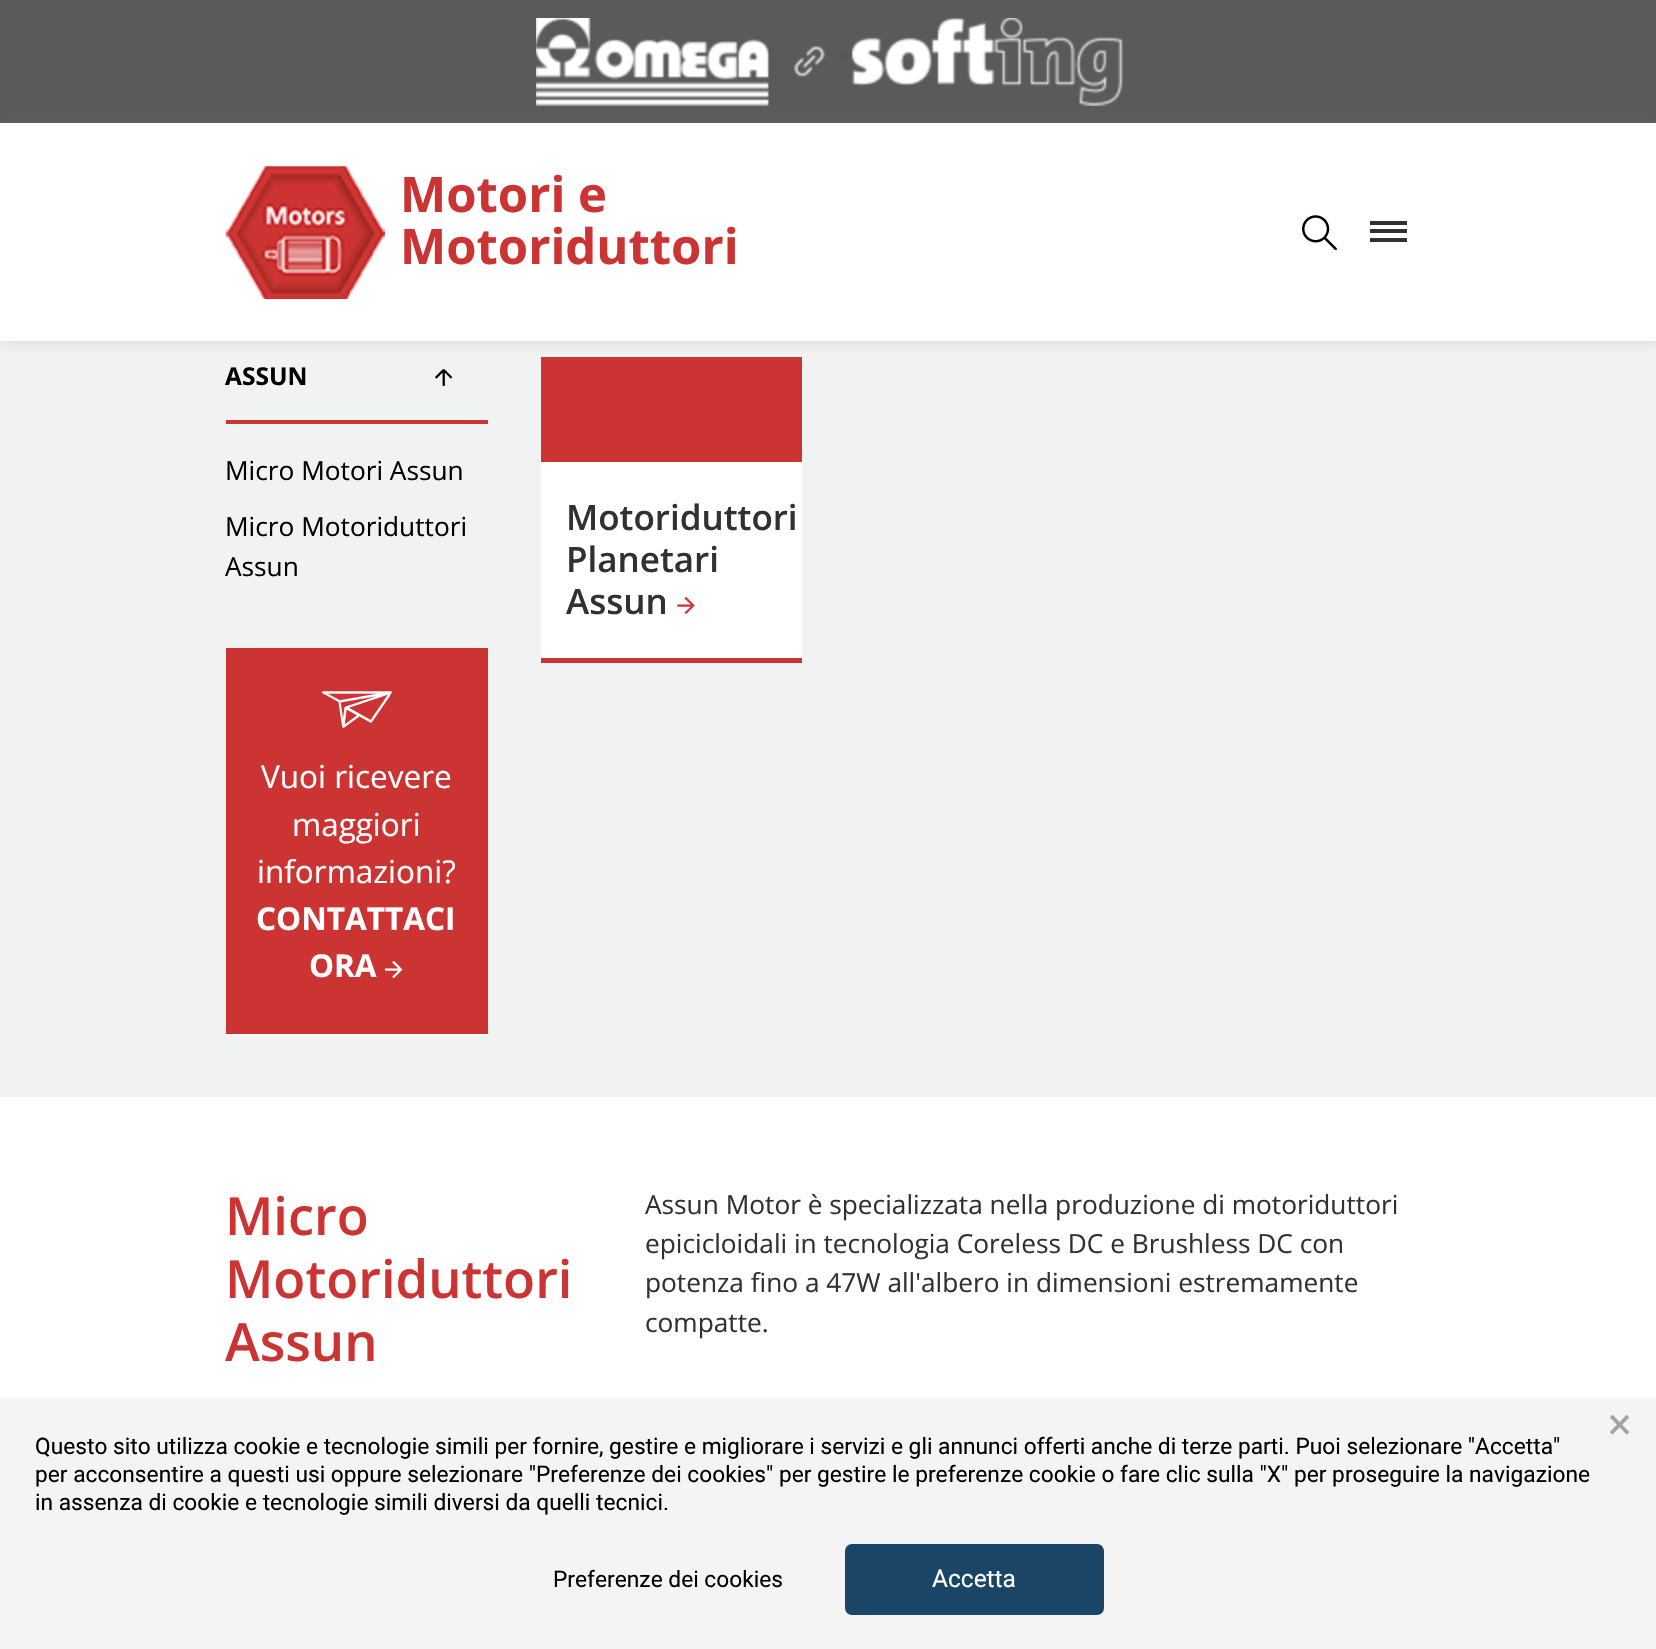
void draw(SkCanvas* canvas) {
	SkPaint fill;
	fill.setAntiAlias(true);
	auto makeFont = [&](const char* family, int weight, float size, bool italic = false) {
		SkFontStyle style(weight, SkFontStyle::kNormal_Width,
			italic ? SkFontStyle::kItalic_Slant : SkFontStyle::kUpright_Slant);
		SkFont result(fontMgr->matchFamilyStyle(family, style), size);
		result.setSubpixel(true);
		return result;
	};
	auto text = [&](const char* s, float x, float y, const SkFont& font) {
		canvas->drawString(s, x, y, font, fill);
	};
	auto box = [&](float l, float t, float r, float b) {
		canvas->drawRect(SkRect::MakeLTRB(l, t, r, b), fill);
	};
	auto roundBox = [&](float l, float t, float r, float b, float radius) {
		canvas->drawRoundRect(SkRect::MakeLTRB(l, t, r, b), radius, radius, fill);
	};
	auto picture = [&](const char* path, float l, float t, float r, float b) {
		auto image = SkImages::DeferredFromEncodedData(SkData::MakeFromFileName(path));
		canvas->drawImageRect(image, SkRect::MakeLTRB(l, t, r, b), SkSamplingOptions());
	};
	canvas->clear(0xFFFFFFFF);
	fill.setColor(0xFF595A5A);
	box(0, 0, 1656, 123);
	picture("image0.png", 536, 18, 769, 106);
	picture("image1.png", 793, 45, 846, 78);
	picture("image2.png", 851, 18, 1123, 106);
	fill.setColor(0xFFF1F2F2);
	box(0, 341, 1656, 1097);
	fill.setColor(0xFFCB3433);
	box(541, 357, 802, 462);
	fill.setColor(0x33ABACAD);
	fill.setMaskFilter(SkMaskFilter::MakeBlur(kNormal_SkBlurStyle, 4.5f));
	canvas->drawRect(SkRect::MakeLTRB(0, 128, 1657, 347), fill);
	fill.setMaskFilter(nullptr);
	fill.setColor(0xFFFFFFFF);
	box(0, 123, 1656, 341);
	picture("image3.png", 225, 166, 385, 299);
	picture("image4.png", 1302, 215, 1337, 250);
	fill.setColor(0xFF313131);
	box(1370, 229, 1407, 233);
	box(1370, 221, 1407, 225);
	box(1370, 238, 1407, 242);
	fill.setColor(0xFFCB3433);
	box(226, 420, 488, 424);
	picture("image5.png", 435, 369, 453, 386);
	box(226, 648, 488, 1034);
	fill.setColor(0xFFFFFFFF);
	box(226, 1034, 488, 1036);
	picture("image6.png", 322, 691, 392, 728);
	picture("image7.png", 385, 961, 403, 978);
	box(541, 462, 802, 658);
	fill.setColor(0xFFCB3433);
	box(541, 658, 802, 663);
	picture("image8.png", 677, 597, 695, 614);
	fill.setColor(0xFFF4F4F4);
	box(0, 1398, 1656, 1649);
	fill.setColor(0xFF1B4566);
	roundBox(845, 1544, 1104, 1615, 7);
	auto font1 = makeFont("Open Sans", 700, 49);
	fill.setColor(0xFFCB3433);
	text("Motori e", 400, 212, font1);
	text("Motoriduttori", 400, 264, font1);
	auto font2 = makeFont("Open Sans", 700, 24.5f);
	fill.setColor(0xFF000000);
	text("ASSUN", 225, 385, font2);
	auto font3 = makeFont("Open Sans", 400, 26.25f);
	text("Micro Motori Assun", 225, 480, font3);
	text("Micro Motoriduttori", 225, 536, font3);
	text("Assun", 225, 576, font3);
	auto font4 = makeFont("Open Sans", 400, 31.5f);
	fill.setColor(0xFFFFFFFF);
	text("Vuoi ricevere", 261, 788, font4);
	text("maggiori", 292, 836, font4);
	text("informazioni?", 257, 883, font4);
	auto font5 = makeFont("Open Sans", 700, 31.5f);
	text("CONTATTACI", 256, 930, font5);
	text("ORA", 309, 977, font5);
	auto font6 = makeFont("Open Sans", 600, 35);
	fill.setColor(0xFF313131);
	text("Motoriduttori", 566, 530, font6);
	text("Planetari", 566, 572, font6);
	text("Assun", 566, 614, font6);
	auto font7 = makeFont("Open Sans", 600, 52.5f);
	fill.setColor(0xFFCB3433);
	text("Micro", 225, 1235, font7);
	text("Motoriduttori", 225, 1298, font7);
	text("Assun", 225, 1361, font7);
	fill.setColor(0xFF313131);
	text("Assun Motor è specializzata nella produzione di motoriduttori", 645, 1214, font3);
	text("epicicloidali in tecnologia Coreless DC e Brushless DC con", 645, 1253, font3);
	text("potenza fino a 47W all'albero in dimensioni estremamente", 645, 1292, font3);
	text("compatte.", 645, 1332, font3);
	auto font8 = makeFont("Roboto", 400, 44);
	fill.setColor(0xFFA3A3A3);
	text("×", 1608, 1439, font8);
	auto font9 = makeFont("Roboto", 400, 22.75f);
	fill.setColor(0xFF000000);
	text("Questo sito utilizza cookie e tecnologie simili per fornire, gestire e migliorare i servizi e gli annunci offerti anche di terze parti. Puoi selezionare \"Accetta\"", 35, 1454, font9);
	text("per acconsentire a questi usi oppure selezionare \"Preferenze dei cookies\" per gestire le preferenze cookie o fare clic sulla \"X\" per proseguire la navigazione", 35, 1482, font9);
	text("in assenza di cookie e tecnologie simili diversi da quelli tecnici.", 35, 1510, font9);
	text("Preferenze dei cookies", 553, 1587, font9);
	auto font10 = makeFont("Roboto", 400, 24.5f);
	fill.setColor(0xFFFFFFFF);
	text("Accetta", 932, 1587, font10);
}
